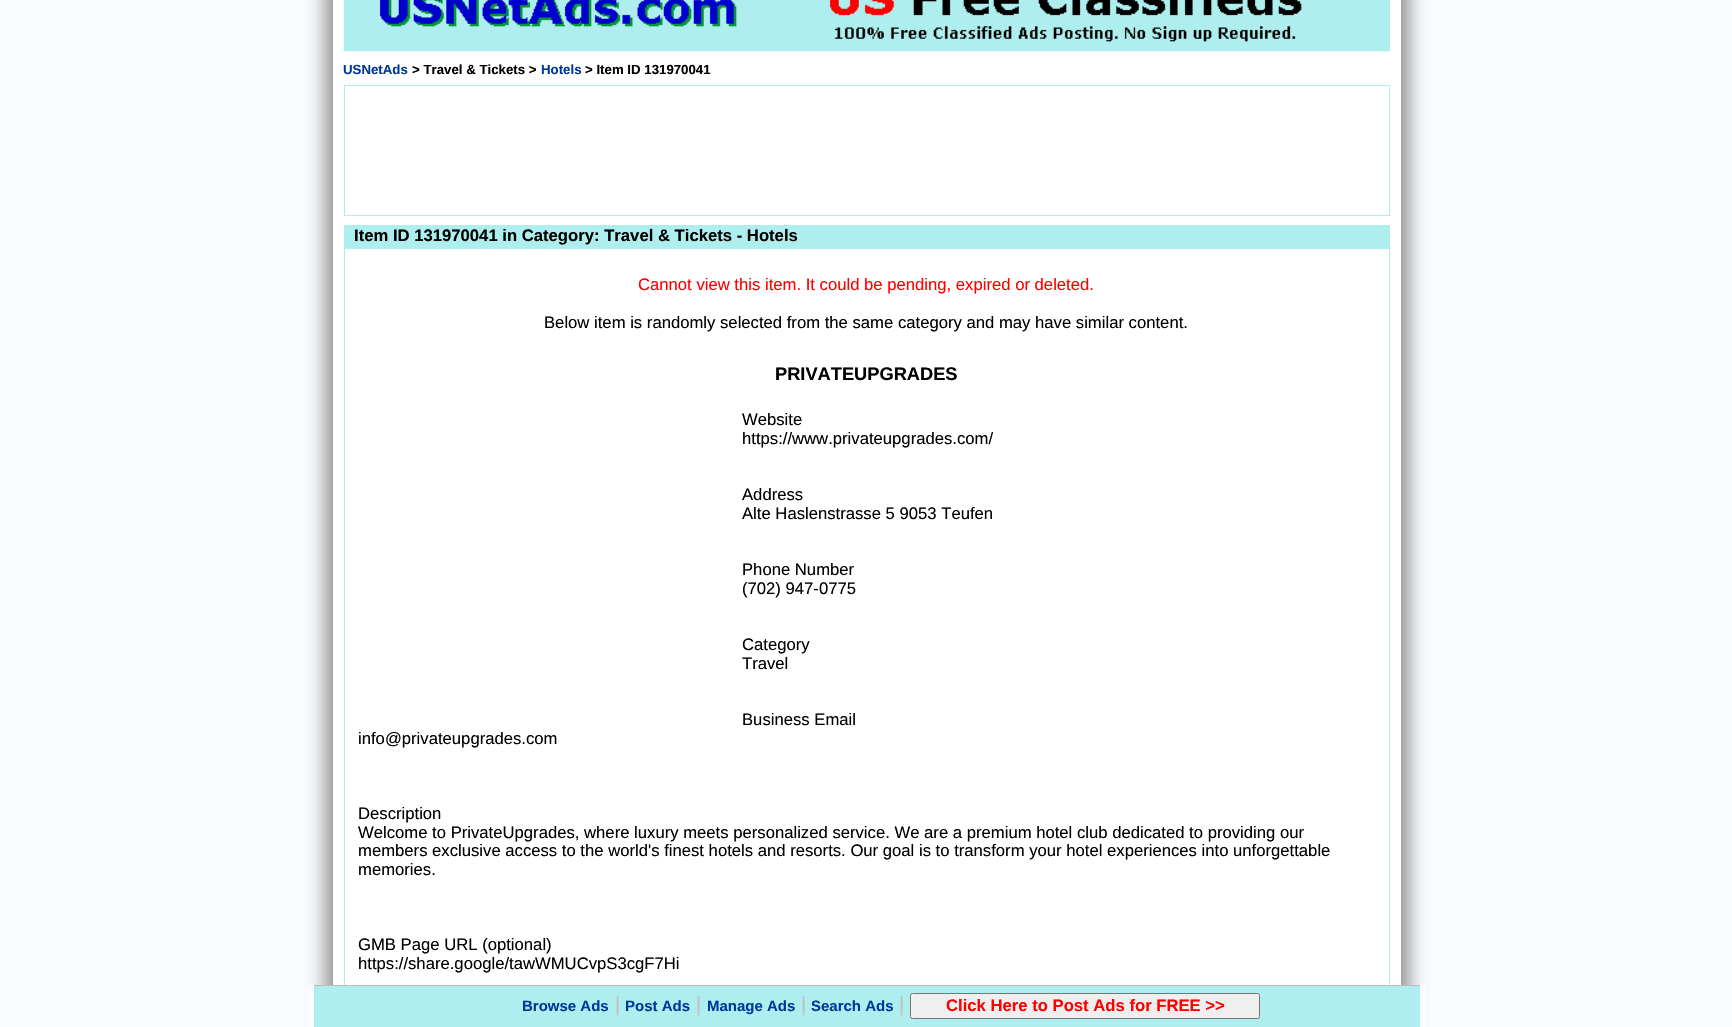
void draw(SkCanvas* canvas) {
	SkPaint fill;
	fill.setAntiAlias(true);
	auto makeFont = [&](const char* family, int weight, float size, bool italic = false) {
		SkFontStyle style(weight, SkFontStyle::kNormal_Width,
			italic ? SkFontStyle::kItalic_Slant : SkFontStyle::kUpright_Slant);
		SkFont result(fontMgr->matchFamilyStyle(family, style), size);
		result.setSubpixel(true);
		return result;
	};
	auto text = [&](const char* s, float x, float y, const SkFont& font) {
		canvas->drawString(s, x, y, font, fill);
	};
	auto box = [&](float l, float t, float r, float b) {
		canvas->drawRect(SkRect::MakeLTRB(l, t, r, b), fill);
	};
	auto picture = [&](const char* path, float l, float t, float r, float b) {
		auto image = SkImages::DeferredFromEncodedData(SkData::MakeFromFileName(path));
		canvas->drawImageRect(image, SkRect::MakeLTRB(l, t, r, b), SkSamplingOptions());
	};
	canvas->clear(0xFFFAFCFF);
	fill.setColor(0xFF888888);
	fill.setMaskFilter(SkMaskFilter::MakeBlur(kNormal_SkBlurStyle, 9.5f));
	canvas->drawRect(SkRect::MakeLTRB(326, -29, 1408, 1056), fill);
	fill.setMaskFilter(nullptr);
	fill.setColor(0xFFFFFFFF);
	box(333, 0, 1401, 985);
	picture("image0.png", 343, 0, 1390, 52);
	fill.setColor(0xFFAFEEEE);
	box(344, 85, 1390, 216);
	fill.setColor(0xFFFFFFFF);
	box(345, 86, 1389, 215);
	fill.setColor(0xFFAFEEEE);
	box(344, 225, 1390, 985);
	fill.setColor(0xFFFFFFFF);
	box(345, 249, 1389, 985);
	fill.setColor(0xFFFAFCFF);
	box(307, 985, 1427, 1027);
	fill.setColor(0xFFAFEEEE);
	box(314, 986, 1420, 1027);
	fill.setColor(0xFFBBBBBB);
	box(314, 985, 1420, 986);
	fill.setColor(0xFFEFEFEF);
	canvas->drawRoundRect(SkRect::MakeLTRB(910.5f, 993.5f, 1259.5f, 1018.5f), 2, 2, fill);
	fill.setStyle(SkPaint::kStroke_Style);
	fill.setStrokeWidth(1);
	fill.setColor(0xFF767676);
	canvas->drawRoundRect(SkRect::MakeLTRB(910.5f, 993.5f, 1259.5f, 1018.5f), 2, 2, fill);
	auto font1 = makeFont("Liberation Sans", 700, 13.25f);
	fill.setStyle(SkPaint::kFill_Style);
	fill.setColor(0xFF003899);
	text("USNetAds", 343, 74, font1);
	fill.setColor(0xFF000000);
	text("> Travel & Tickets >", 412, 74, font1);
	fill.setColor(0xFF003899);
	text("Hotels", 541, 74, font1);
	fill.setColor(0xFF000000);
	text("> Item ID 131970041", 585, 74, font1);
	auto font2 = makeFont("Liberation Sans", 700, 16.67f);
	text("Item ID 131970041 in Category: Travel & Tickets - Hotels", 354, 241, font2);
	auto font3 = makeFont("Liberation Sans", 400, 16.67f);
	fill.setColor(0xFFFF0000);
	text("Cannot view this item. It could be pending, expired or deleted.", 638, 290, font3);
	fill.setColor(0xFF000000);
	text("Below item is randomly selected from the same category and may have similar content.", 544, 328, font3);
	auto font4 = makeFont("Liberation Sans", 700, 18.25f);
	text("PRIVATEUPGRADES", 775, 380, font4);
	text("Website", 742, 425, font3);
	text("https://www.privateupgrades.com/", 742, 444, font3);
	text("Address", 742, 500, font3);
	text("Alte Haslenstrasse 5 9053 Teufen", 742, 519, font3);
	text("Phone Number", 742, 575, font3);
	text("(702) 947-0775", 742, 594, font3);
	text("Category", 742, 650, font3);
	text("Travel", 742, 669, font3);
	text("Business Email", 742, 725, font3);
	text("info@privateupgrades.com", 358, 744, font3);
	text("Description", 358, 819, font3);
	text("Welcome to PrivateUpgrades, where luxury meets personalized service. We are a premium hotel club dedicated to providing our", 358, 838, font3);
	text("members exclusive access to the world's finest hotels and resorts. Our goal is to transform your hotel experiences into unforgettable", 358, 856, font3);
	text("memories.", 358, 875, font3);
	text("GMB Page URL (optional)", 358, 950, font3);
	text("https://share.google/tawWMUCvpS3cgF7Hi", 358, 969, font3);
	auto font5 = makeFont("Liberation Sans", 700, 15);
	fill.setColor(0xFF003899);
	text("Browse Ads", 522, 1011, font5);
	auto font6 = makeFont("Liberation Sans", 400, 20);
	fill.setColor(0xFFC0C0C0);
	text("|", 615, 1011, font6);
	fill.setColor(0xFF003899);
	text("Post Ads", 625, 1011, font5);
	fill.setColor(0xFFC0C0C0);
	text("|", 696, 1011, font6);
	fill.setColor(0xFF003899);
	text("Manage Ads", 707, 1011, font5);
	fill.setColor(0xFFC0C0C0);
	text("|", 801, 1011, font6);
	fill.setColor(0xFF003899);
	text("Search Ads", 811, 1011, font5);
	fill.setColor(0xFFC0C0C0);
	text("|", 899, 1011, font6);
	fill.setColor(0xFFFF0000);
	text("Click Here to Post Ads for FREE >>", 946, 1011, font2);
}
